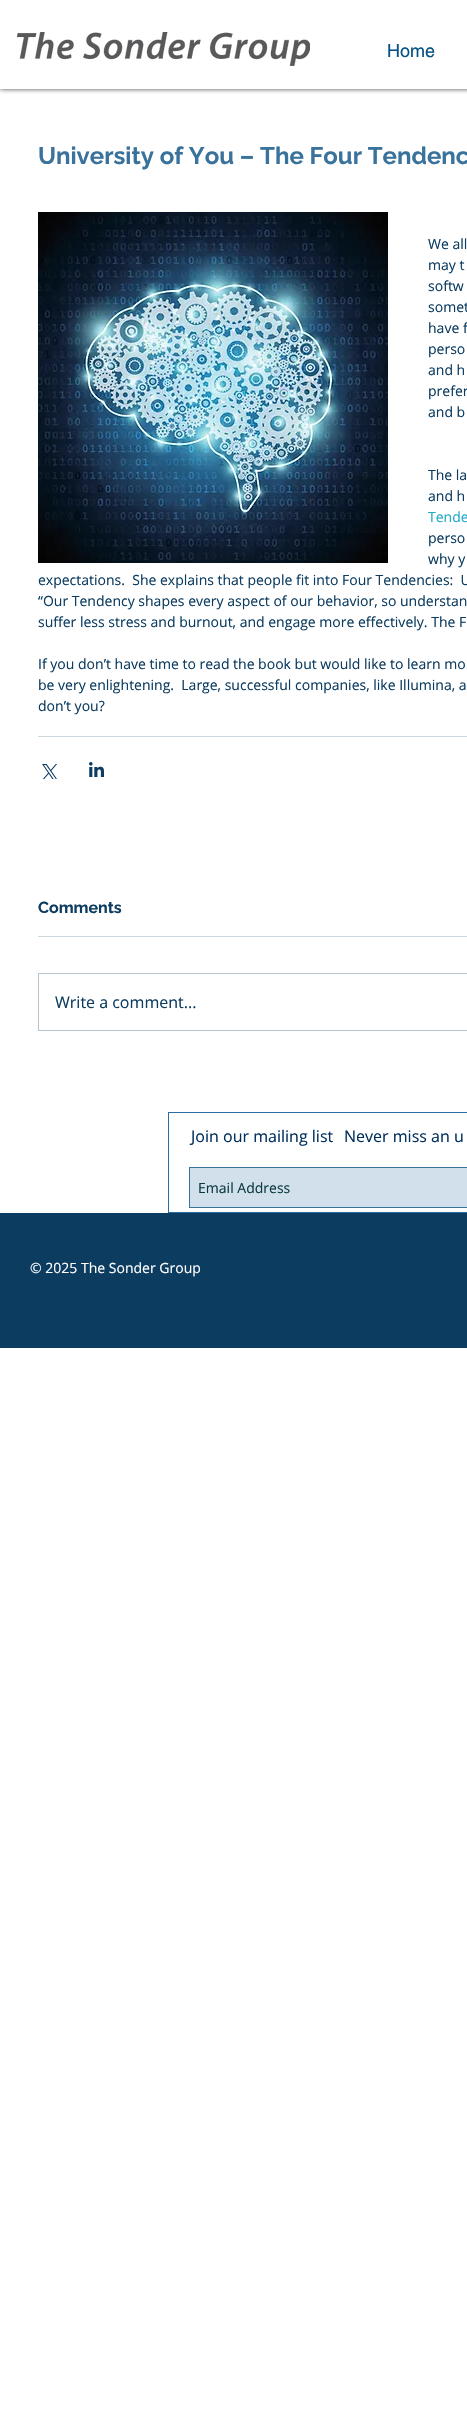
void draw(SkCanvas* canvas) {
	SkPaint fill;
	fill.setAntiAlias(true);
	auto makeFont = [&](const char* family, int weight, float size, bool italic = false) {
		SkFontStyle style(weight, SkFontStyle::kNormal_Width,
			italic ? SkFontStyle::kItalic_Slant : SkFontStyle::kUpright_Slant);
		SkFont result(fontMgr->matchFamilyStyle(family, style), size);
		result.setSubpixel(true);
		return result;
	};
	auto text = [&](const char* s, float x, float y, const SkFont& font) {
		canvas->drawString(s, x, y, font, fill);
	};
	auto box = [&](float l, float t, float r, float b) {
		canvas->drawRect(SkRect::MakeLTRB(l, t, r, b), fill);
	};
	auto picture = [&](const char* path, float l, float t, float r, float b) {
		auto image = SkImages::DeferredFromEncodedData(SkData::MakeFromFileName(path));
		canvas->drawImageRect(image, SkRect::MakeLTRB(l, t, r, b), SkSamplingOptions());
	};
	canvas->clear(0xFFFFFFFF);
	canvas->save();
	canvas->clipRect(SkRect::MakeLTRB(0, 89, 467, 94));
	fill.setColor(0xB3000000);
	fill.setMaskFilter(SkMaskFilter::MakeBlur(kNormal_SkBlurStyle, 2.5f));
	canvas->drawRect(SkRect::MakeLTRB(0, 0, 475, 89), fill);
	fill.setMaskFilter(nullptr);
	canvas->restore();
	picture("image0.png", 17, 32, 310, 66);
	picture("image1.png", 38, 212, 388, 563);
	fill.setColor(0xFFCED8DF);
	box(38, 736, 467, 737);
	picture("image2.png", 42, 764, 57, 779);
	picture("image3.png", 89, 762, 104, 777);
	box(38, 936, 467, 937);
	fill.setStyle(SkPaint::kStroke_Style);
	fill.setStrokeWidth(1);
	fill.setColor(0xFFB6C5CF);
	canvas->drawRect(SkRect::MakeLTRB(38.5f, 973.5f, 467.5f, 1030.5f), fill);
	fill.setColor(0xFF2B6CA3);
	canvas->drawRect(SkRect::MakeLTRB(168.5f, 1112.5f, 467.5f, 1212.5f), fill);
	fill.setStyle(SkPaint::kFill_Style);
	fill.setColor(0xFFD1E0EB);
	canvas->drawRect(SkRect::MakeLTRB(189.5f, 1167.5f, 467.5f, 1207.5f), fill);
	fill.setStyle(SkPaint::kStroke_Style);
	fill.setColor(0xFF39729B);
	canvas->drawRect(SkRect::MakeLTRB(189.5f, 1167.5f, 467.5f, 1207.5f), fill);
	fill.setStyle(SkPaint::kFill_Style);
	fill.setColor(0xFF0C3C60);
	box(0, 1213, 467, 1348);
	auto font1 = makeFont("helvetica", 400, 18);
	fill.setColor(0xFF045184);
	text("Home", 387, 57, font1);
	auto font2 = makeFont("Raleway", 700, 24);
	fill.setColor(0xFF39729B);
	text("University of You – The Four Tendenc", 38, 164, font2);
	auto font3 = makeFont("Open Sans", 400, 14);
	fill.setColor(0xFF0C3C60);
	text("We all", 428, 249, font3);
	text("may t", 428, 270, font3);
	text("softw", 428, 291, font3);
	text("somet", 428, 312, font3);
	text("have f", 428, 333, font3);
	text("perso", 428, 354, font3);
	text("and h", 428, 375, font3);
	text("prefer", 428, 396, font3);
	text("and b", 428, 417, font3);
	text("The la", 428, 480, font3);
	text("and h", 428, 501, font3);
	fill.setColor(0xFF1EABC7);
	text("Tende", 428, 522, font3);
	fill.setColor(0xFF0C3C60);
	text("perso", 428, 543, font3);
	text("why y", 428, 564, font3);
	text("expectations.  She explains that people fit into Four Tendencies:  U", 38, 585, font3);
	text("“Our Tendency shapes every aspect of our behavior, so understan", 38, 606, font3);
	text("suffer less stress and burnout, and engage more effectively. The F", 38, 627, font3);
	text("If you don’t have time to read the book but would like to learn mo", 38, 669, font3);
	text("be very enlightening.  Large, successful companies, like Illumina, a", 38, 690, font3);
	text("don’t you?", 38, 711, font3);
	auto font4 = makeFont("Raleway", 700, 16);
	text("Comments", 38, 913, font4);
	auto font5 = makeFont("Open Sans", 400, 16);
	text("Write a comment...", 55, 1008, font5);
	fill.setColor(0xFF002E5D);
	text("Join our mailing list", 191, 1142, font5);
	text("Never miss an u", 344, 1142, font5);
	fill.setColor(0xFF0A3942);
	text("Email Address", 198, 1193, font3);
	fill.setColor(0xFFFFFFFF);
	text("© 2025 The Sonder Group", 30, 1273, font3);
}
